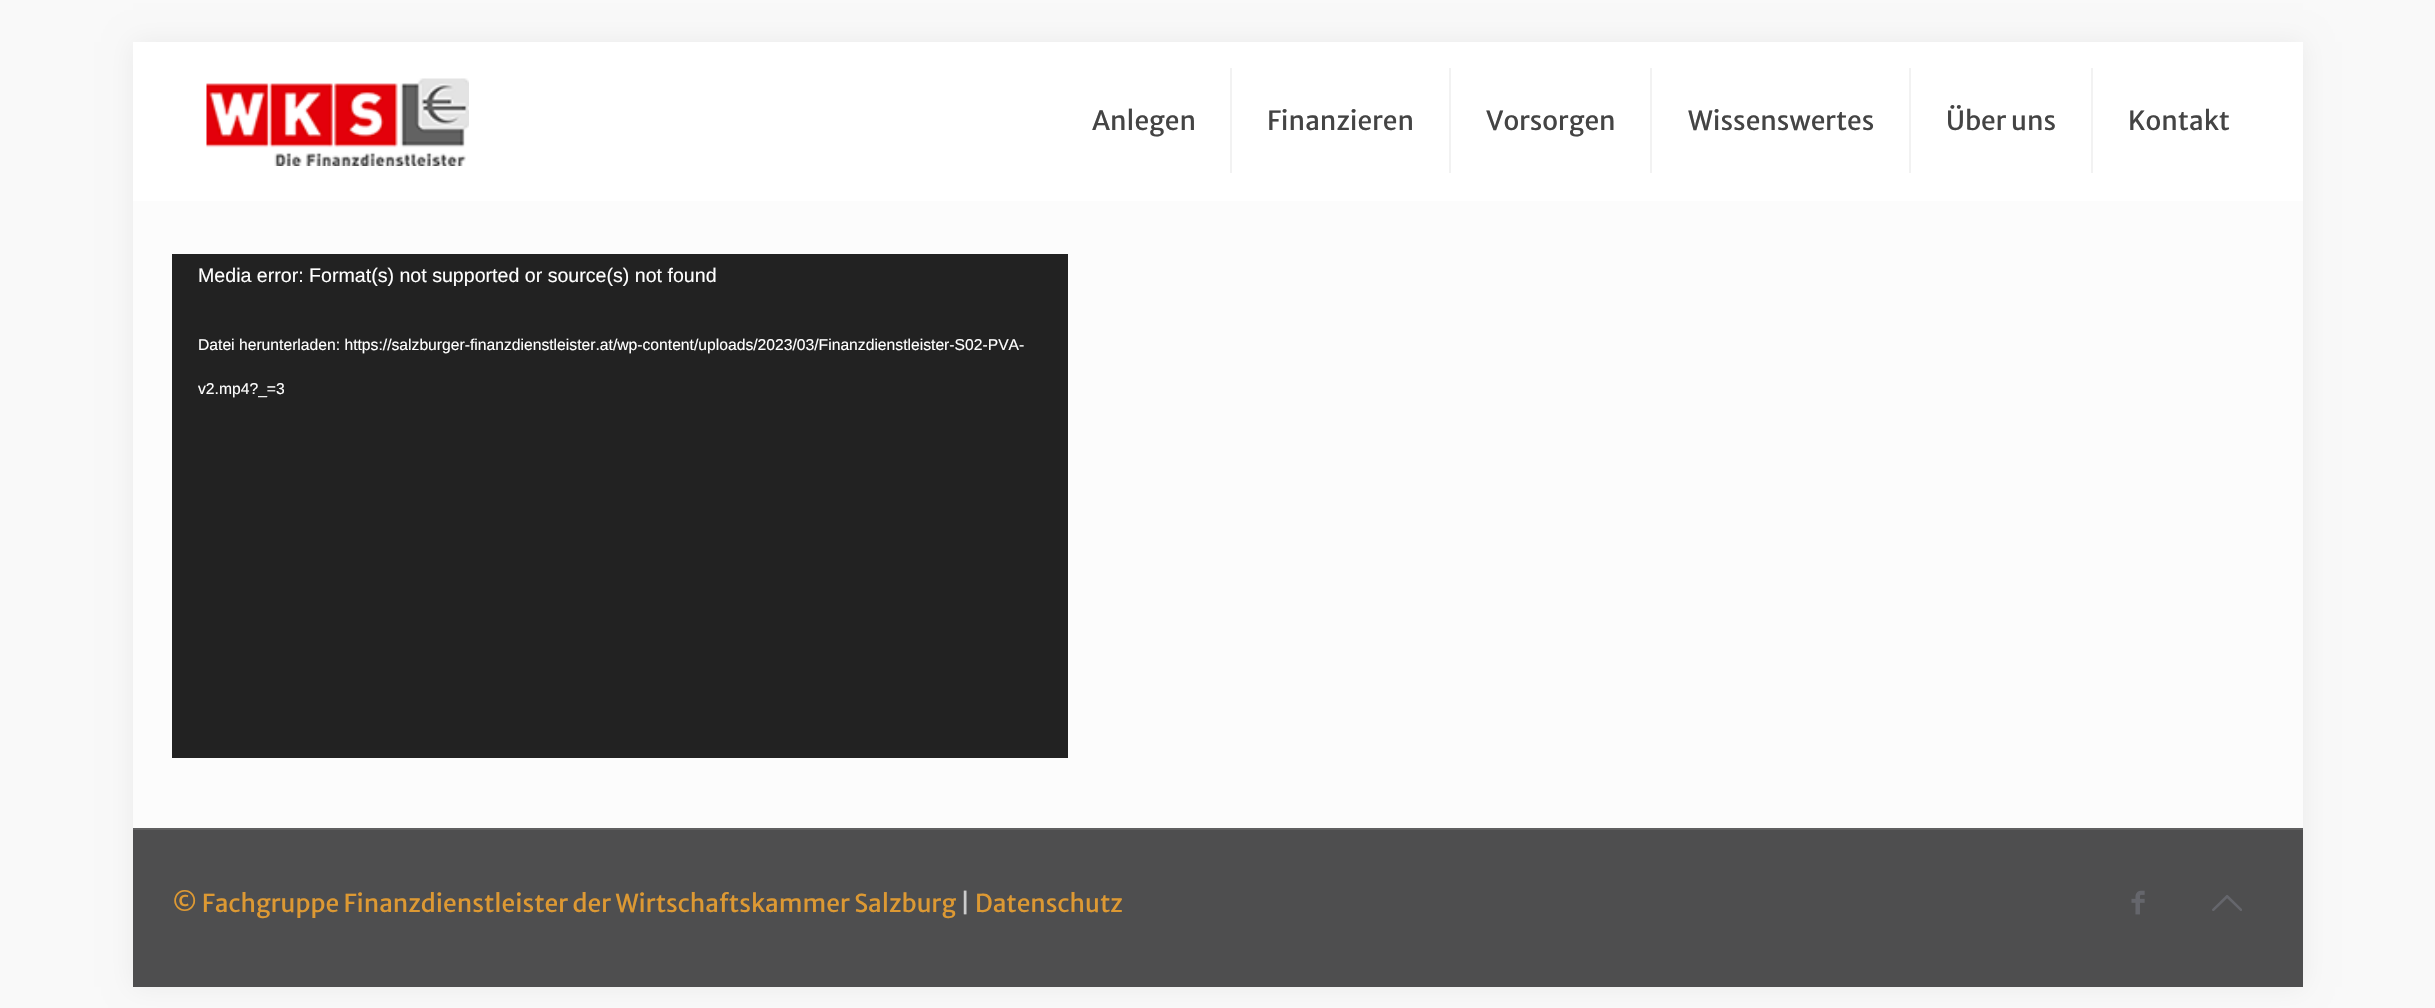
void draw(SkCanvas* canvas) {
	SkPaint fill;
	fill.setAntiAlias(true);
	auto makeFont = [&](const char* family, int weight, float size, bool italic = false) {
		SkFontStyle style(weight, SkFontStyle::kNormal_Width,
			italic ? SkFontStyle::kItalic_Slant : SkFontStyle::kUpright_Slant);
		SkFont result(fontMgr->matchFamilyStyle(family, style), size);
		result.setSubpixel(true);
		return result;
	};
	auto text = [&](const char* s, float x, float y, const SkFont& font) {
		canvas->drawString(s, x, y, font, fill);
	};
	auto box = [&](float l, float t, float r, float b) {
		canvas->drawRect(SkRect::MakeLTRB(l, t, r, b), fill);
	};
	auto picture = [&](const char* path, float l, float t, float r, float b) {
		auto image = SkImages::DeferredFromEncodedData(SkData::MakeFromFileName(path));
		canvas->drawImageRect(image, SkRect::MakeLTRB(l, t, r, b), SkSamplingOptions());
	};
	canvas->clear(0xFFF9F9F9);
	fill.setColor(0x0F000000);
	fill.setMaskFilter(SkMaskFilter::MakeBlur(kNormal_SkBlurStyle, 13));
	canvas->drawRect(SkRect::MakeLTRB(133, 42, 2303, 987), fill);
	fill.setMaskFilter(nullptr);
	fill.setColor(0xFFFCFCFC);
	box(133, 201, 2303, 828);
	fill.setColor(0xFFFFFFFF);
	box(133, 42, 2303, 201);
	picture("image0.png", 206, 78, 469, 166);
	fill.setColor(0xFFF2F2F2);
	box(1230, 68, 1232, 173);
	box(1449, 68, 1451, 173);
	box(1650, 68, 1652, 173);
	box(1909, 68, 1911, 173);
	box(2091, 68, 2093, 173);
	fill.setColor(0xFF222222);
	box(172, 254, 1068, 758);
	fill.setColor(0xFF4E4E4F);
	box(133, 830, 2303, 987);
	fill.setColor(0xFF606061);
	box(133, 828, 2303, 830);
	picture("image1.png", 2131, 890, 2145, 915);
	picture("image2.png", 2212, 895, 2242, 911);
	auto font1 = makeFont("Merriweather Sans", 400, 26.25f);
	fill.setColor(0xFF444444);
	text("Anlegen", 1092, 130, font1);
	text("Finanzieren", 1267, 130, font1);
	text("Vorsorgen", 1486, 130, font1);
	text("Wissenswertes", 1688, 130, font1);
	text("Über uns", 1946, 130, font1);
	text("Kontakt", 2128, 130, font1);
	auto font2 = makeFont("Liberation Sans", 400, 19.6f);
	fill.setColor(0xFFFFFFFF);
	text("Media error: Format(s) not supported or source(s) not found", 198, 282, font2);
	auto font3 = makeFont("Liberation Sans", 400, 15.68f);
	text("Datei herunterladen: https://salzburger-finanzdienstleister.at/wp-content/uploads/2023/03/Finanzdienstleister-S02-PVA-", 198, 350, font3);
	text("v2.mp4?_=3", 198, 394, font3);
	auto font4 = makeFont("Merriweather Sans", 400, 24.5f);
	fill.setColor(0xFFDD9933);
	text("© Fachgruppe Finanzdienstleister der Wirtschaftskammer Salzburg", 172, 912, font4);
	fill.setColor(0xFFCCCCCC);
	text("|", 960, 912, font4);
	fill.setColor(0xFFDD9933);
	text("Datenschutz", 975, 912, font4);
}
